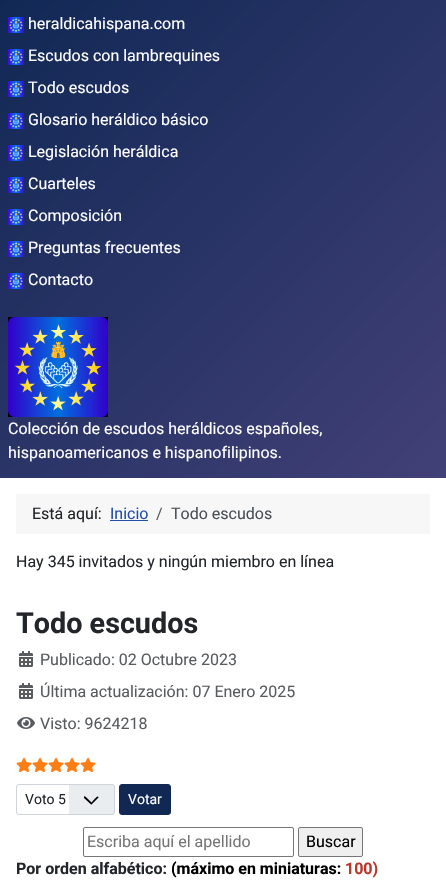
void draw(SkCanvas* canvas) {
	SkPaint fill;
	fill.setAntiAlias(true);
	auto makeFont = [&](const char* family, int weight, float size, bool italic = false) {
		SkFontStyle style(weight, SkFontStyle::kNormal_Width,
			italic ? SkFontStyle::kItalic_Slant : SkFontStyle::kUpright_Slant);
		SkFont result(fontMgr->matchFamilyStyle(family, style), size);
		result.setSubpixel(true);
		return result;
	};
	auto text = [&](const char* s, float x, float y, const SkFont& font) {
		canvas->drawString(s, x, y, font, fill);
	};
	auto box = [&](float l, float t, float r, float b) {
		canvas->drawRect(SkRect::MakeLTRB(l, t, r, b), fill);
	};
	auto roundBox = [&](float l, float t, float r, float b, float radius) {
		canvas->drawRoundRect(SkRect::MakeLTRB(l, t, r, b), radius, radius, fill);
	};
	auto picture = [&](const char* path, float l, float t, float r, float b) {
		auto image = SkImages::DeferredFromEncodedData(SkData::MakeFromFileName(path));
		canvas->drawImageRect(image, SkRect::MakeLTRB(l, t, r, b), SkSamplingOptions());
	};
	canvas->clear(0xFFFFFFFF);
	{
		const SkColor colors[] = {0xFF112855, 0xFF424077};
		const float stops[] = {0, 1};
		const SkPoint ends[] = {{-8, 8}, {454, 470}};
		fill.setShader(SkGradientShader::MakeLinear(ends, colors, stops, 2, SkTileMode::kClamp));
		fill.setAlpha(255);
	}
	box(0, 0, 446, 478);
	picture("image0.png", 8, 17, 24, 33);
	picture("image1.png", 8, 49, 24, 65);
	picture("image2.png", 8, 81, 24, 97);
	picture("image3.png", 8, 113, 24, 129);
	picture("image4.png", 8, 145, 24, 161);
	picture("image5.png", 8, 177, 24, 193);
	picture("image6.png", 8, 209, 24, 225);
	picture("image7.png", 8, 241, 24, 257);
	picture("image8.png", 8, 273, 24, 289);
	picture("image9.png", 8, 317, 108, 417);
	fill.setShader(nullptr);
	fill.setColor(0xFFF7F7F7);
	box(16, 494, 430, 534);
	fill.setColor(0xFF224FAA);
	box(110, 520, 148, 521);
	picture("image10.png", 19, 651, 33, 667);
	picture("image10.png", 19, 683, 33, 699);
	picture("image11.png", 17, 717, 35, 729);
	picture("image12.png", 16, 757, 32, 773);
	picture("image12.png", 32, 757, 48, 773);
	picture("image12.png", 48, 757, 64, 773);
	picture("image12.png", 64, 757, 80, 773);
	picture("image12.png", 80, 757, 96, 773);
	fill.setColor(0xFFEAEDF0);
	roundBox(16, 784, 115, 815, 3);
	fill.setColor(0xFF000000);
	canvas->drawPath(SkPathBuilder().moveTo(84, 798).lineTo(90, 803.5f).cubicTo(91.5f, 805, 91, 805, 92.5f, 803.5f).lineTo(98.5f, 797.5f).cubicTo(98, 794.5f, 95.5f, 798.5f, 95, 798.5f).lineTo(91.5f, 802.5f).lineTo(87.5f, 798.5f).cubicTo(86.5f, 797.5f, 84, 794.5f, 84, 797.5f).close().detach(), fill);
	fill.setColor(0xFFFFFFFF);
	canvas->drawPath(SkPathBuilder().moveTo(19, 784).lineTo(69, 784).lineTo(69, 815).lineTo(19, 815).cubicTo(17.5f, 815, 16, 813.5f, 16, 812).lineTo(16, 787).cubicTo(16, 785.5f, 17.5f, 784, 19, 784).close().detach(), fill);
	fill.setStyle(SkPaint::kStroke_Style);
	fill.setStrokeWidth(1);
	fill.setColor(0xFFCED4DA);
	canvas->drawRoundRect(SkRect::MakeLTRB(16.5f, 784.5f, 114.5f, 814.5f), 2.5f, 2.5f, fill);
	fill.setStyle(SkPaint::kFill_Style);
	fill.setColor(0xFF112855);
	canvas->drawRoundRect(SkRect::MakeLTRB(119.5f, 784.5f, 170.5f, 814.5f), 2.5f, 2.5f, fill);
	fill.setStyle(SkPaint::kStroke_Style);
	canvas->drawRoundRect(SkRect::MakeLTRB(119.5f, 784.5f, 170.5f, 814.5f), 2.5f, 2.5f, fill);
	fill.setColor(0xFF767676);
	canvas->drawRoundRect(SkRect::MakeLTRB(83.5f, 827.5f, 293.5f, 856.5f), 1.5f, 1.5f, fill);
	fill.setStyle(SkPaint::kFill_Style);
	fill.setColor(0xFFEFEFEF);
	canvas->drawRoundRect(SkRect::MakeLTRB(298.5f, 827.5f, 362.5f, 856.5f), 1.5f, 1.5f, fill);
	fill.setStyle(SkPaint::kStroke_Style);
	fill.setColor(0xFF767676);
	canvas->drawRoundRect(SkRect::MakeLTRB(298.5f, 827.5f, 362.5f, 856.5f), 1.5f, 1.5f, fill);
	auto font1 = makeFont("Roboto", 400, 16);
	fill.setStyle(SkPaint::kFill_Style);
	fill.setColor(0xFFFFFFFF);
	text("heraldicahispana.com", 28, 29, font1);
	text("Escudos con lambrequines", 28, 61, font1);
	text("Todo escudos", 28, 93, font1);
	text("Glosario heráldico básico", 28, 125, font1);
	text("Legislación heráldica", 28, 157, font1);
	text("Cuarteles", 28, 189, font1);
	text("Composición", 28, 221, font1);
	text("Preguntas frecuentes", 28, 253, font1);
	text("Contacto", 28, 285, font1);
	text("Colección de escudos heráldicos españoles,", 8, 434, font1);
	text("hispanoamericanos e hispanofilipinos.", 8, 458, font1);
	fill.setColor(0xFF22262A);
	text("Está aquí:", 32, 519, font1);
	fill.setColor(0xFF224FAA);
	text("Inicio", 110, 519, font1);
	fill.setColor(0xFF595C5F);
	text("/", 156, 519, font1);
	fill.setColor(0xFF484F56);
	text("Todo escudos", 171, 519, font1);
	fill.setColor(0xFF22262A);
	text("Hay 345 invitados y ningún miembro en línea", 16, 567, font1);
	auto font2 = makeFont("Roboto", 700, 28.75f);
	text("Todo escudos", 16, 633, font2);
	fill.setColor(0xFF595C5F);
	text("Publicado: 02 Octubre 2023", 40, 665, font1);
	text("Última actualización: 07 Enero 2025", 40, 697, font1);
	text("Visto: 9624218", 40, 729, font1);
	auto font3 = makeFont("Roboto", 400, 14);
	fill.setColor(0xFF22262A);
	text("Voto 5", 25, 804, font3);
	fill.setColor(0xFFFFFFFF);
	text("Votar", 128, 804, font3);
	fill.setColor(0xFF757575);
	text("Escriba aquí el apellido", 87, 847, font1);
	fill.setColor(0xFF000000);
	text("Buscar", 306, 847, font1);
	auto font4 = makeFont("Roboto", 700, 16);
	fill.setColor(0xFF22262A);
	text("Por orden alfabético:", 16, 874, font4);
	fill.setColor(0xFF000000);
	text("(máximo en miniaturas:", 171, 874, font4);
	fill.setColor(0xFFBA372A);
	text("100)", 345, 874, font4);
}
